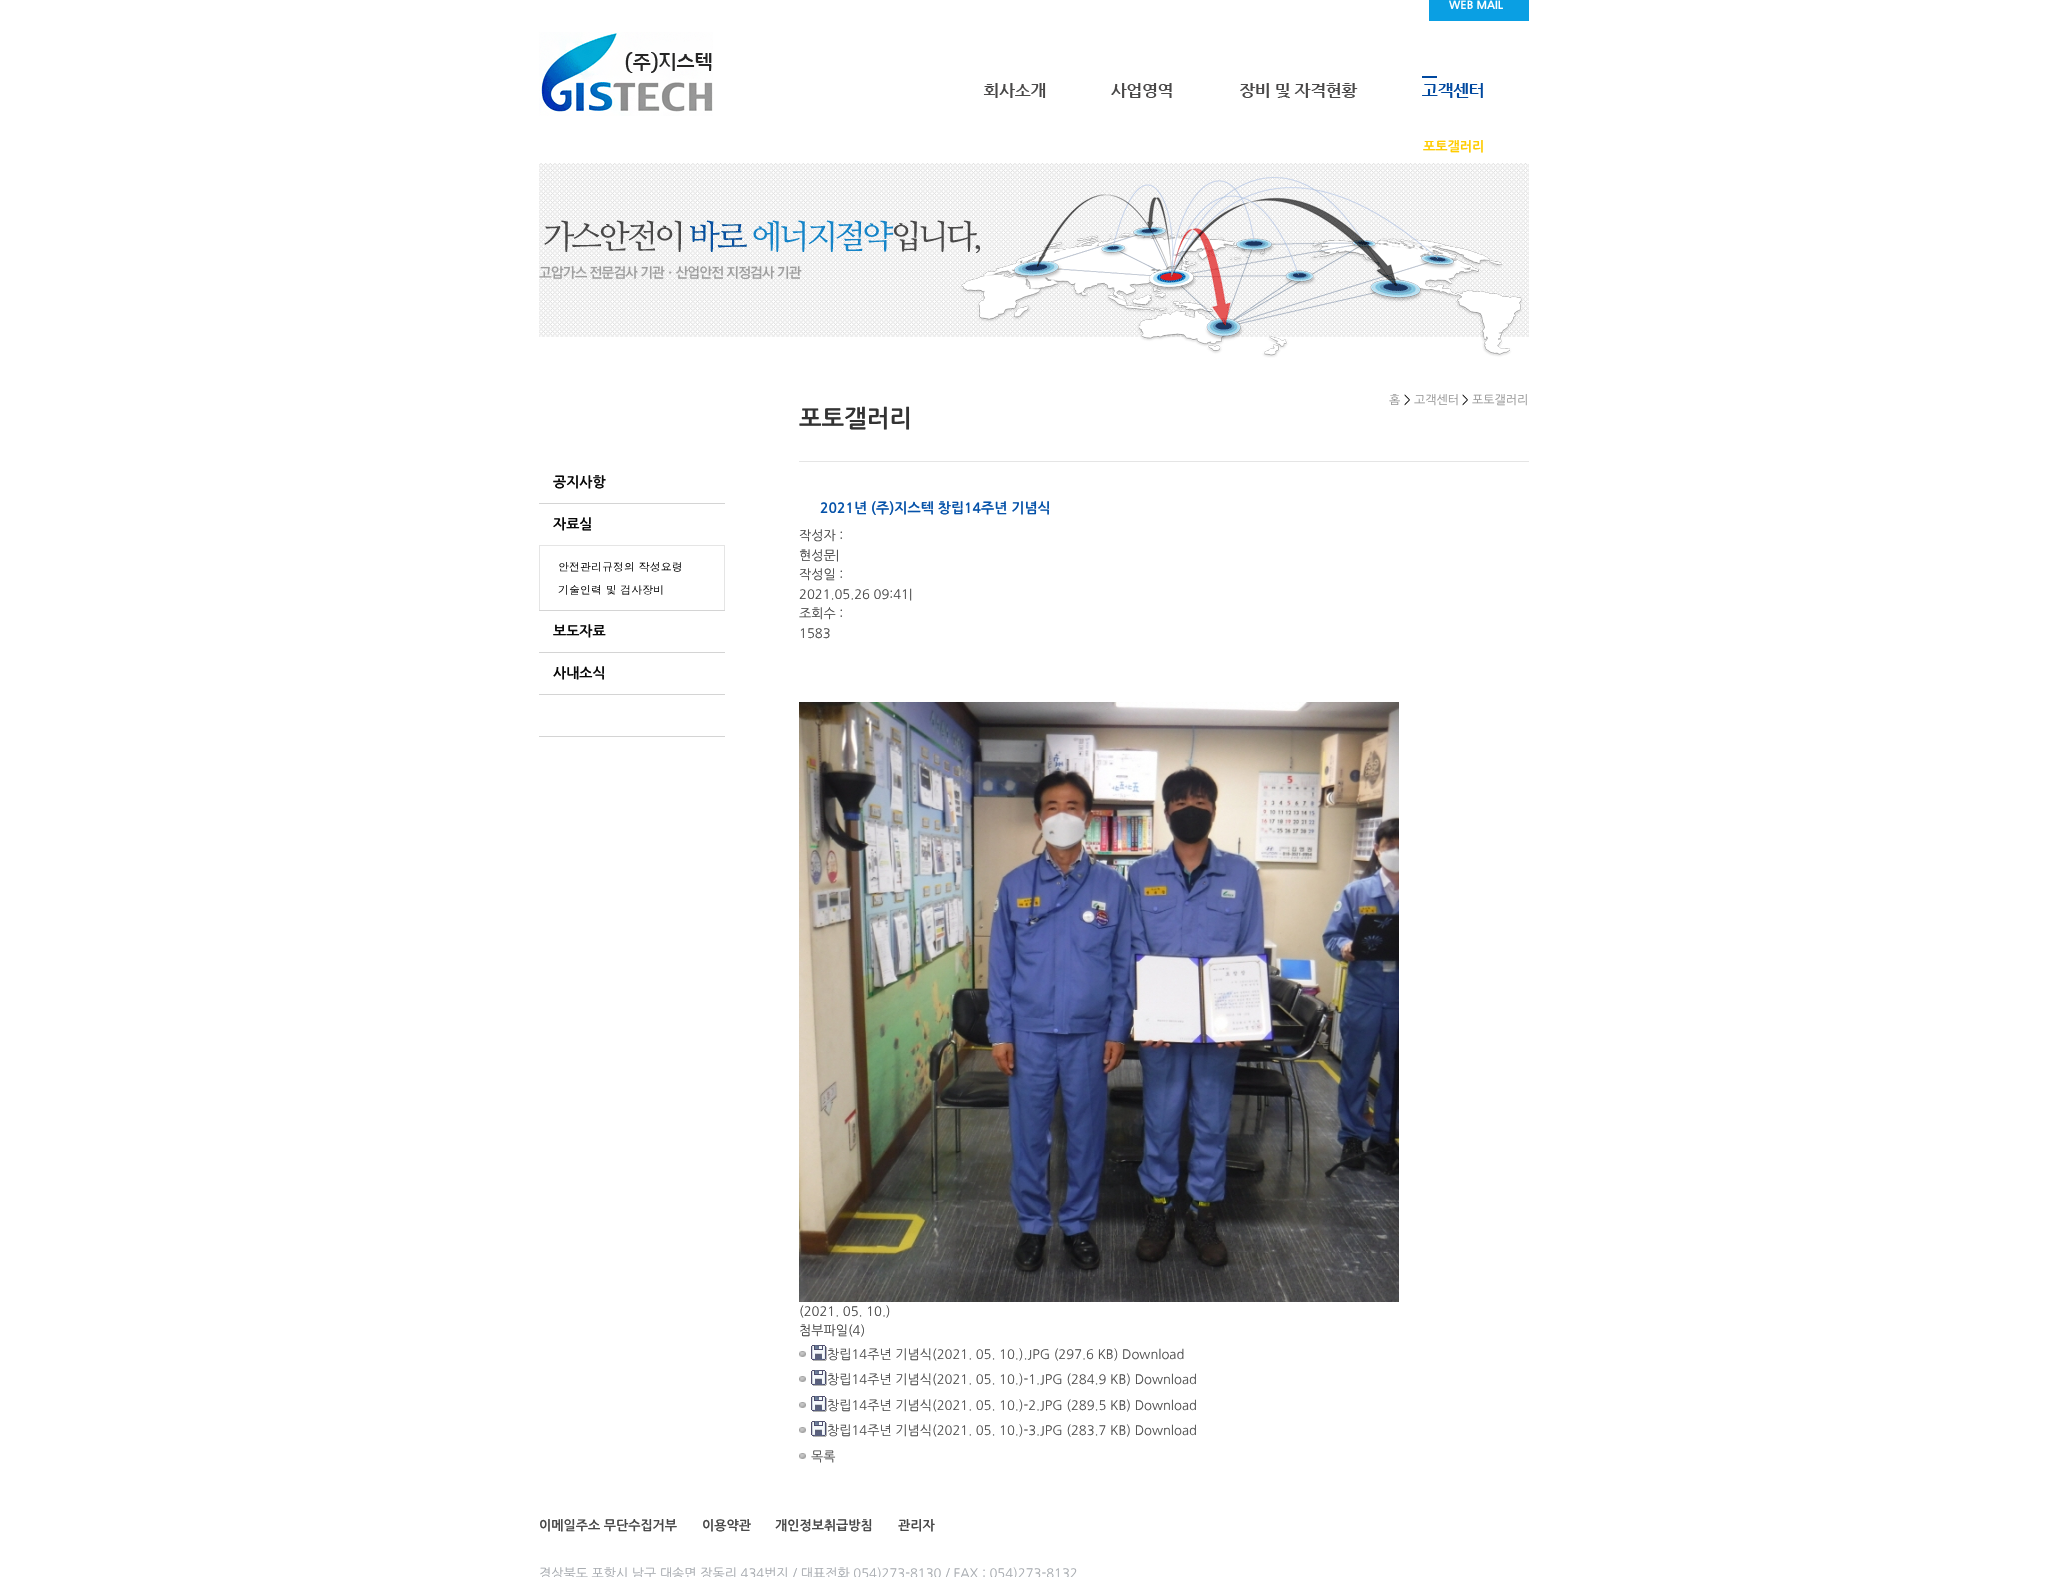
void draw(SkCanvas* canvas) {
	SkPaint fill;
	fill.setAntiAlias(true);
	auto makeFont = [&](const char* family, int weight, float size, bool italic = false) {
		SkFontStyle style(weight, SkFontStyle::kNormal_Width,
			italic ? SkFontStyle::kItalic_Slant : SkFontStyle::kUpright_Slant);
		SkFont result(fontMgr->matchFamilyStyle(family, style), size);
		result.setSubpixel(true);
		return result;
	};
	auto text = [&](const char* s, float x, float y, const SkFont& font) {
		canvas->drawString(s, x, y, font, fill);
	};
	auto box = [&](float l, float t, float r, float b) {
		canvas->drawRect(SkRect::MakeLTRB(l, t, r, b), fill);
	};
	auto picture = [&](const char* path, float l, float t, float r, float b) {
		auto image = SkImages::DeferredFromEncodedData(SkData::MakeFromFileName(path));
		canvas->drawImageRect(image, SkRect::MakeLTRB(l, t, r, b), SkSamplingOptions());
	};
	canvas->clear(0xFFFFFFFF);
	fill.setColor(0xFF0A9FE3);
	box(1429, 0, 1529, 21);
	picture("image0.png", 539, 32, 713, 116);
	picture("image1.png", 983, 83, 1046, 98);
	picture("image2.png", 1111, 83, 1172, 98);
	picture("image3.png", 1240, 83, 1358, 98);
	picture("image4.png", 1422, 76, 1483, 98);
	picture("image5.png", 539, 163, 1529, 358);
	fill.setColor(0xFFD4D4D4);
	box(539, 503, 725, 504);
	box(539, 610, 725, 611);
	fill.setColor(0xFFE5E5E5);
	box(539, 545, 725, 546);
	box(724, 545, 725, 610);
	box(539, 545, 540, 610);
	fill.setColor(0xFFD4D4D4);
	box(539, 652, 725, 653);
	box(539, 694, 725, 695);
	box(539, 736, 725, 737);
	fill.setColor(0xFFE5E5E5);
	box(799, 461, 1529, 462);
	picture("image6.png", 799, 702, 1399, 1302);
	picture("image7.png", 799, 1351, 806, 1357);
	picture("image8.png", 811, 1345, 827, 1361);
	picture("image7.png", 799, 1376, 806, 1382);
	picture("image8.png", 811, 1370, 827, 1386);
	picture("image7.png", 799, 1402, 806, 1408);
	picture("image8.png", 811, 1396, 827, 1412);
	picture("image7.png", 799, 1427, 806, 1433);
	picture("image8.png", 811, 1421, 827, 1437);
	picture("image7.png", 799, 1453, 806, 1459);
	auto font1 = makeFont("NanumGothic", 700, 11);
	fill.setColor(0xFFFFFFFF);
	text("WEB MAIL", 1449, 9, font1);
	auto font2 = makeFont("NanumGothic", 700, 13);
	fill.setColor(0xFFFFCC00);
	text("포토갤러리", 1423, 151, font2);
	auto font3 = makeFont("NanumGothic", 700, 14);
	fill.setColor(0xFF080808);
	text("공지사항", 553, 487, font3);
	text("자료실", 553, 529, font3);
	auto font4 = makeFont("Dotum", 400, 11);
	text("안전관리규정의 작성요령", 558, 571, font4);
	text("기술인력 및 검사장비", 558, 594, font4);
	text("보도자료", 553, 636, font3);
	text("사내소식", 553, 678, font3);
	auto font5 = makeFont("NanumGothic", 400, 12);
	fill.setColor(0xFF999999);
	text("홈", 1389, 404, font5);
	fill.setColor(0xFF0F0F0F);
	text(">", 1404, 404, font5);
	fill.setColor(0xFF999999);
	text("고객센터", 1414, 404, font5);
	fill.setColor(0xFF0F0F0F);
	text(">", 1462, 404, font5);
	fill.setColor(0xFF999999);
	text("포토갤러리", 1472, 404, font5);
	auto font6 = makeFont("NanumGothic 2", 700, 24);
	fill.setColor(0xFF333333);
	text("포토갤러리", 799, 427, font6);
	fill.setColor(0xFF0552A9);
	text("2021년 (주)지스텍 창립14주년 기념식", 820, 513, font3);
	auto font7 = makeFont("NanumGothic", 400, 13);
	fill.setColor(0xFF484848);
	text("작성자 :", 799, 540, font7);
	text("현성문|", 799, 560, font7);
	text("작성일 :", 799, 579, font7);
	text("2021.05.26 09:41|", 799, 599, font7);
	text("조회수 :", 799, 618, font7);
	text("1583", 799, 638, font7);
	text("(2021. 05. 10.)", 799, 1316, font7);
	text("첨부파일(4)", 799, 1335, font7);
	fill.setColor(0xFF515151);
	text("창립14주년 기념식(2021. 05. 10.).JPG (297.6 KB) Download", 827, 1359, font7);
	text("창립14주년 기념식(2021. 05. 10.)-1.JPG (284.9 KB) Download", 827, 1384, font7);
	text("창립14주년 기념식(2021. 05. 10.)-2.JPG (289.5 KB) Download", 827, 1410, font7);
	text("창립14주년 기념식(2021. 05. 10.)-3.JPG (283.7 KB) Download", 827, 1435, font7);
	text("목록", 811, 1461, font7);
	fill.setColor(0xFF484848);
	text("이메일주소 무단수집거부", 539, 1530, font2);
	text("이용약관", 702, 1530, font2);
	text("개인정보취급방침", 775, 1530, font2);
	text("관리자", 898, 1530, font2);
	fill.setColor(0xFFA8ACB1);
	text("경상북도 포항시 남구 대송면 장동리 434번지 / 대표전화 054)273-8130 / FAX : 054)273-8132", 539, 1578, font7);
}
